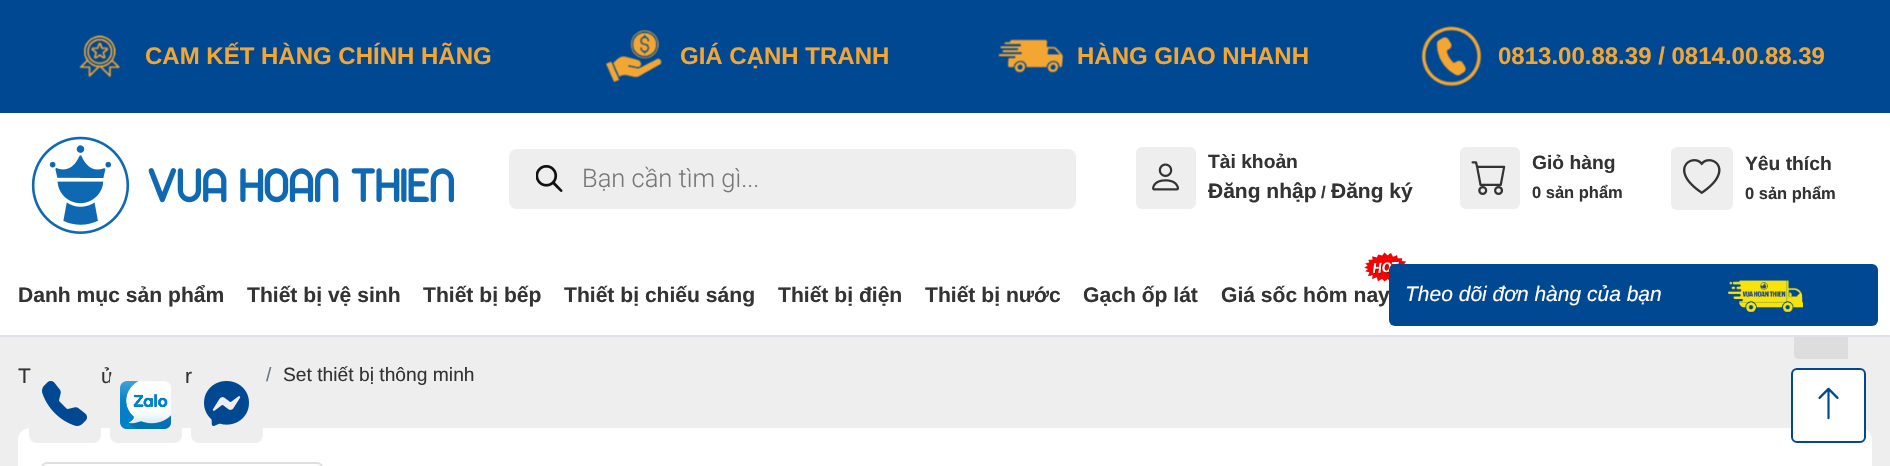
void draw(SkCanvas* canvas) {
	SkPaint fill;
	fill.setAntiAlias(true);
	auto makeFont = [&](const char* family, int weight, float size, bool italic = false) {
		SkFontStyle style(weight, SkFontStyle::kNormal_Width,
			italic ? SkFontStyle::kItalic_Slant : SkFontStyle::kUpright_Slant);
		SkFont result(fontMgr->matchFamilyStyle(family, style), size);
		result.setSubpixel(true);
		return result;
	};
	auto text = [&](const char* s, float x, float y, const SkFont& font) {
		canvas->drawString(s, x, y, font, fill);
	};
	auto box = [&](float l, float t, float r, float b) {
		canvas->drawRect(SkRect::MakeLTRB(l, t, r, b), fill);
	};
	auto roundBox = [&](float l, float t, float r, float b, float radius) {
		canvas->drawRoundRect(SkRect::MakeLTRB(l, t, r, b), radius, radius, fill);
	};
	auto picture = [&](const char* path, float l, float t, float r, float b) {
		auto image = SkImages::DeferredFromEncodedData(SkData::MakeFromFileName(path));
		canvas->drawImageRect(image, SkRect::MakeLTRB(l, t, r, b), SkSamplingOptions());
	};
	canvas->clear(0xFFEEEEEE);
	fill.setColor(0xFF004892);
	box(0, 0, 1890, 113);
	picture("image0.png", 79, 35, 120, 78);
	picture("image1.png", 605, 29, 662, 83);
	picture("image2.png", 998, 39, 1064, 73);
	picture("image3.png", 1421, 26, 1482, 87);
	fill.setColor(0xFFDDDDDD);
	canvas->drawPath(SkPathBuilder().moveTo(1799, 278).lineTo(1848, 278).lineTo(1848, 359).lineTo(1799, 359).cubicTo(1796, 359, 1794, 357, 1794, 354).lineTo(1794, 283).cubicTo(1794, 280, 1796, 278, 1799, 278).close().detach(), fill);
	fill.setColor(0xFFFFFFFF);
	box(0, 113, 1890, 335);
	picture("image4.png", 31, 136, 454, 234);
	fill.setColor(0xFFEEEEEE);
	roundBox(509, 149, 1076, 209, 8);
	picture("image5.png", 536, 165, 563, 192);
	roundBox(1136, 147, 1196, 209, 6);
	picture("image6.png", 1152, 163, 1179, 191);
	roundBox(1460, 147, 1520, 209, 6);
	picture("image7.png", 1471, 161, 1506, 195);
	roundBox(1671, 147, 1733, 210, 6);
	picture("image8.png", 1683, 159, 1721, 195);
	fill.setColor(0xFFDEE2E6);
	box(0, 335, 1890, 337);
	picture("image9.png", 1364, 252, 1407, 282);
	fill.setColor(0xFFFFFFFF);
	roundBox(18, 428, 1872, 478, 12);
	fill.setStyle(SkPaint::kStroke_Style);
	fill.setStrokeWidth(2);
	fill.setColor(0xFFDFDFDF);
	canvas->drawRoundRect(SkRect::MakeLTRB(42, 463, 322, 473), 5, 5, fill);
	fill.setStyle(SkPaint::kFill_Style);
	fill.setColor(0xFFFFFFFF);
	canvas->drawRoundRect(SkRect::MakeLTRB(1792, 369, 1865, 442), 5, 5, fill);
	fill.setStyle(SkPaint::kStroke_Style);
	fill.setColor(0xFF004892);
	canvas->drawRoundRect(SkRect::MakeLTRB(1792, 369, 1865, 442), 5, 5, fill);
	picture("image11.png", 1818, 387, 1839, 420);
	auto font1 = makeFont("Liberation Sans", 700, 24);
	fill.setStyle(SkPaint::kFill_Style);
	fill.setColor(0xFFF4A632);
	text("CAM KẾT HÀNG CHÍNH HÃNG", 145, 64, font1);
	text("GIÁ CẠNH TRANH", 680, 64, font1);
	text("HÀNG GIAO NHANH", 1077, 64, font1);
	text("0813.00.88.39 / 0814.00.88.39", 1498, 64, font1);
	auto font2 = makeFont("Roboto", 300, 25.5f);
	fill.setColor(0xFF777777);
	text("Bạn cần tìm gì...", 582, 187, font2);
	auto font3 = makeFont("Liberation Sans", 700, 19.25f);
	fill.setColor(0xFF333333);
	text("Tài khoản", 1208, 168, font3);
	auto font4 = makeFont("Liberation Sans", 700, 21);
	text("Đăng nhập", 1208, 198, font4);
	auto font5 = makeFont("Liberation Sans", 700, 17);
	text("/", 1321, 198, font5);
	text("Đăng ký", 1331, 198, font4);
	text("Giỏ hàng", 1532, 169, font3);
	auto font6 = makeFont("Liberation Sans", 700, 16.5f);
	text("0 sản phẩm", 1532, 198, font6);
	text("Yêu thích", 1745, 170, font3);
	text("0 sản phẩm", 1745, 199, font6);
	auto font7 = makeFont("Liberation Sans", 700, 21.1f);
	text("Danh mục sản phẩm", 18, 302, font7);
	text("Thiết bị vệ sinh", 247, 302, font7);
	text("Thiết bị bếp", 423, 302, font7);
	text("Thiết bị chiếu sáng", 564, 302, font7);
	text("Thiết bị điện", 778, 302, font7);
	text("Thiết bị nước", 925, 302, font7);
	text("Gạch ốp lát", 1083, 302, font7);
	text("Giá sốc hôm nay", 1221, 302, font7);
	fill.setColor(0xFF004892);
	roundBox(1389, 264, 1878, 326, 6);
	auto font8 = makeFont("Liberation Sans", 400, 21, true);
	fill.setColor(0xFFFFFFFF);
	text("Theo dõi đơn hàng của bạn", 1405, 301, font8);
	picture("image10.png", 1728, 280, 1803, 312);
	auto font9 = makeFont("Liberation Sans", 400, 21);
	fill.setColor(0xFF333333);
	text("T", 18, 383, font9);
	text("ủ", 101, 383, font9);
	text("r", 185, 383, font9);
	auto font10 = makeFont("Liberation Sans", 400, 19.25f);
	fill.setColor(0xFF6C757D);
	text("/", 266, 381, font10);
	fill.setColor(0xFF333333);
	text("Set thiết bị thông minh", 283, 381, font10);
	fill.setColor(0xFFEEEEEE);
	roundBox(29, 371, 101, 443, 8);
	picture("image12.png", 42, 381, 87, 426);
	roundBox(110, 371, 182, 443, 8);
	picture("image13.png", 120, 381, 171, 429);
	roundBox(191, 371, 263, 443, 8);
	picture("image14.png", 204, 381, 249, 426);
}
